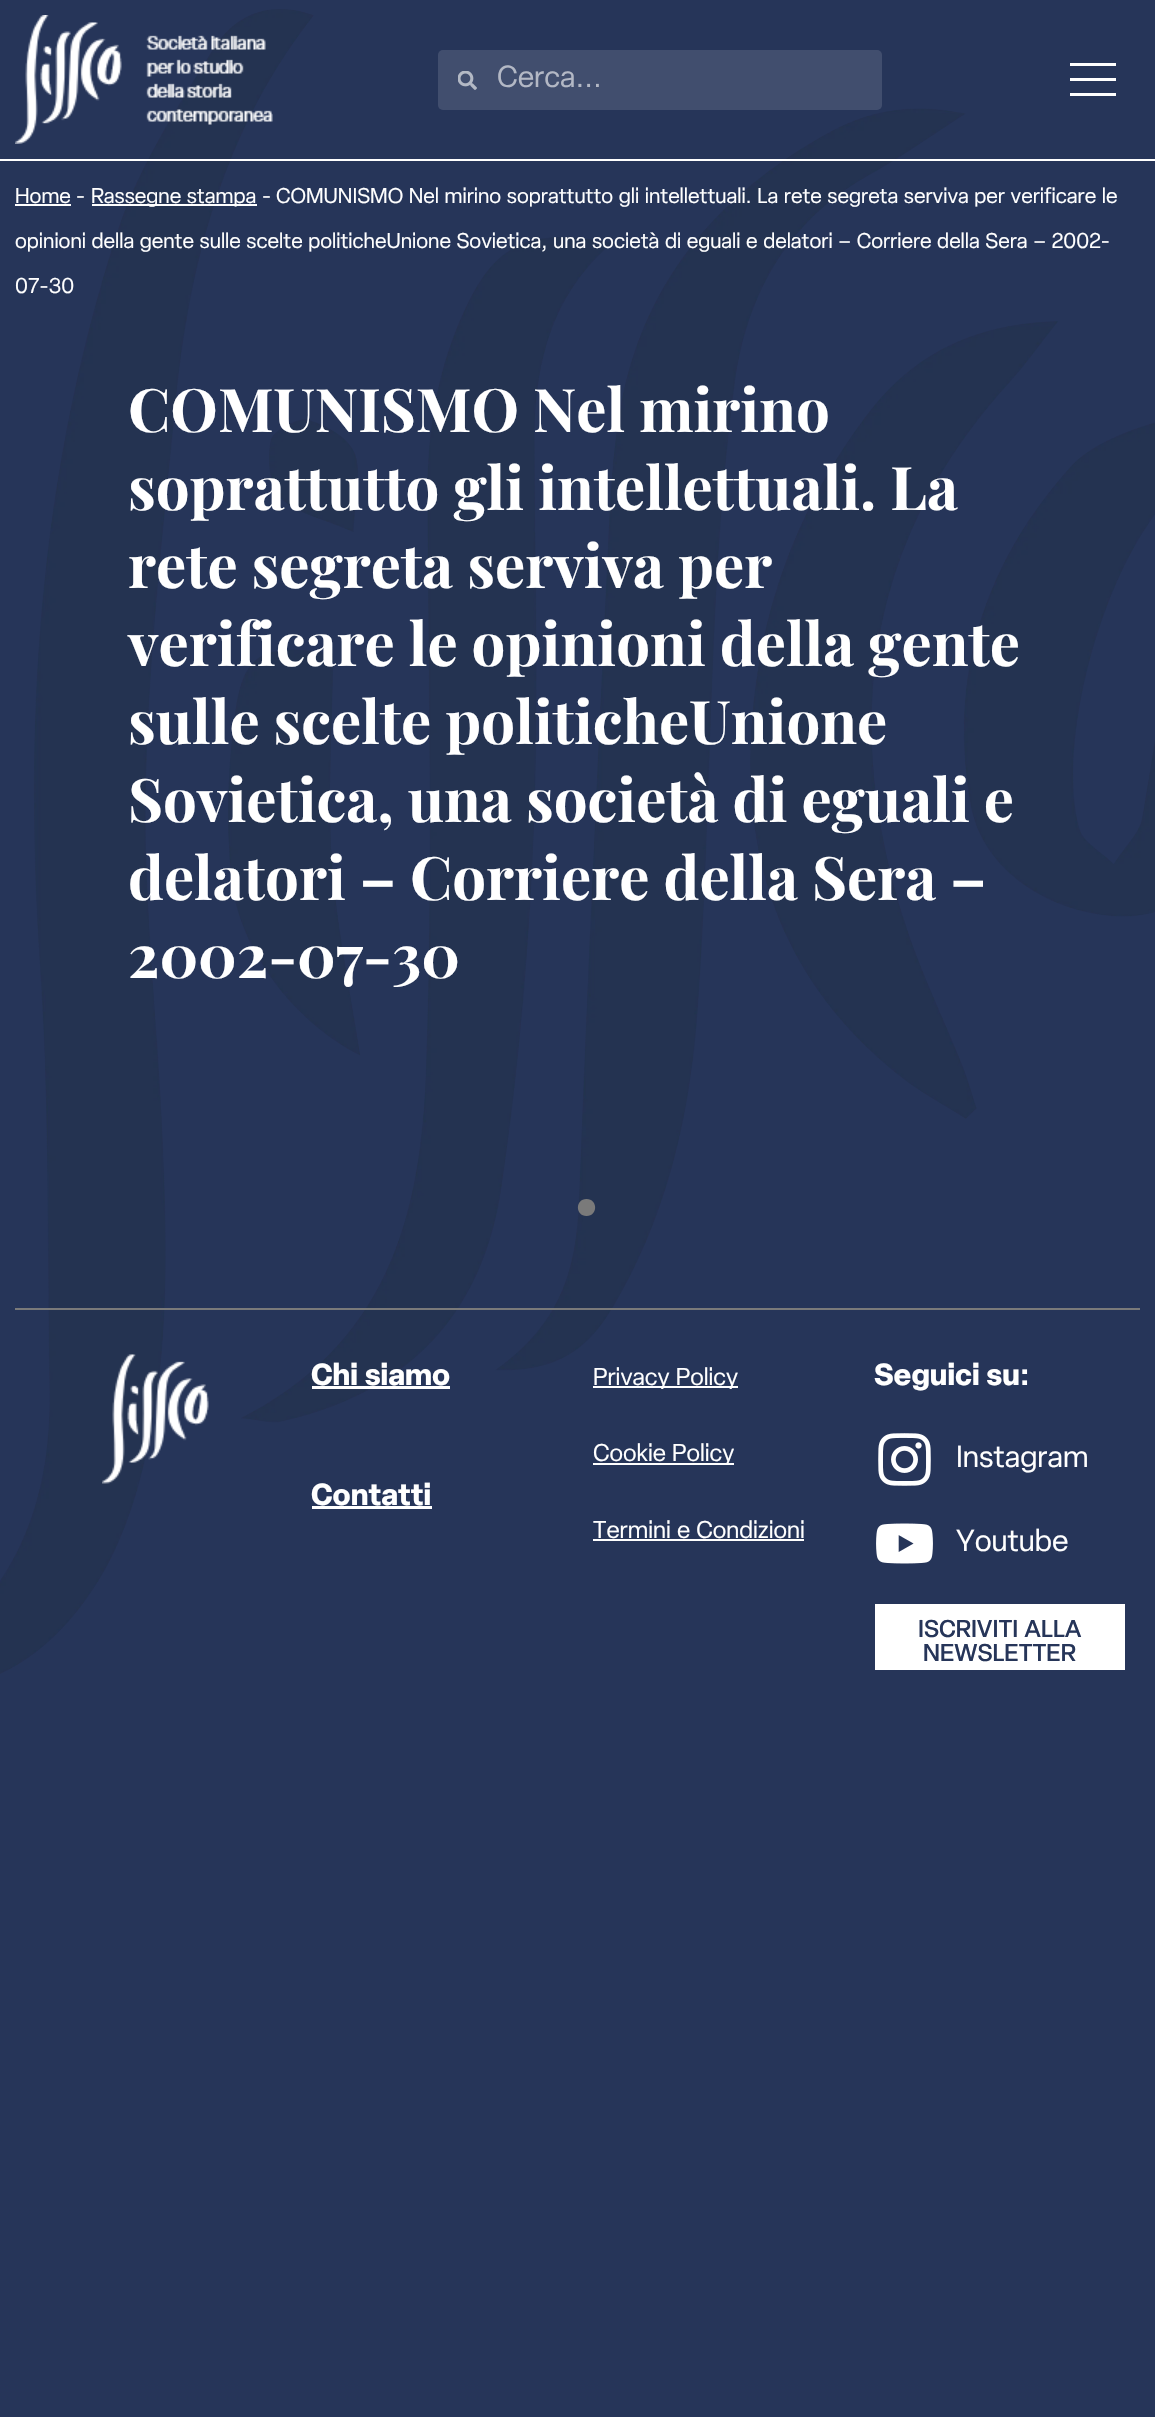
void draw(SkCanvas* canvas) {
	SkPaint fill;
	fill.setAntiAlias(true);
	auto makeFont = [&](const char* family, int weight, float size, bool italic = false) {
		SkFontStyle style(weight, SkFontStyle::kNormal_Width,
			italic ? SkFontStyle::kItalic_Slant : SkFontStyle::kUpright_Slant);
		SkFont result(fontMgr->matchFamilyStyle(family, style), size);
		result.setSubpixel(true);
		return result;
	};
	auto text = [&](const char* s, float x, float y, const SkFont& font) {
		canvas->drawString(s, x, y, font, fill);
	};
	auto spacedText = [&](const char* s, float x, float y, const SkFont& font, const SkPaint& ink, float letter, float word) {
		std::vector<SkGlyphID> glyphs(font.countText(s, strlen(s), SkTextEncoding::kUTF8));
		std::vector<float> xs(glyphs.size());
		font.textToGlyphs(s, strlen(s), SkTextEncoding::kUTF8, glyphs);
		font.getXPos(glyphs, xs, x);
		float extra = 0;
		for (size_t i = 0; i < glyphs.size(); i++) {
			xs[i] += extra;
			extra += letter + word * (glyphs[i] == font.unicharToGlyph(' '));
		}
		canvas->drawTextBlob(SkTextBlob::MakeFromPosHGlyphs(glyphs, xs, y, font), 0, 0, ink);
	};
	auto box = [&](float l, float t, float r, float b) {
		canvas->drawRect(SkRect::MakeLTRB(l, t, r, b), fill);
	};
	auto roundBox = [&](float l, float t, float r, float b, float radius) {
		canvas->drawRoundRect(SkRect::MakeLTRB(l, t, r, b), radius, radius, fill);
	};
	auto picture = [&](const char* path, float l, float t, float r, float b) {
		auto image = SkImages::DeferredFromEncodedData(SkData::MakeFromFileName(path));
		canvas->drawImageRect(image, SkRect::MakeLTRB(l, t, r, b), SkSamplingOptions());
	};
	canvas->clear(0xFF263559);
	picture("image0.png", 0, 9, 1155, 1674);
	fill.setColor(0xFFFFFFFF);
	box(0, 159, 1155, 161);
	picture("image1.png", 15, 15, 273, 144);
	fill.setColor(0xFF414E6E);
	roundBox(438, 50, 882, 110, 5);
	picture("image2.png", 458, 71, 477, 90);
	fill.setColor(0xFFFFFFFF);
	box(1070, 78, 1116, 81);
	box(1070, 63, 1116, 66);
	box(1070, 93, 1116, 96);
	box(15, 204, 71, 206);
	box(92, 204, 257, 206);
	fill.setColor(0xFF7A7A7A);
	box(15, 1308, 1140, 1310);
	canvas->drawPath(SkPathBuilder().moveTo(586.5f, 1199).cubicTo(575, 1199, 575, 1216, 586.5f, 1216).cubicTo(598, 1216, 598, 1199, 586.5f, 1199).close().detach(), fill);
	picture("image3.png", 102, 1354, 209, 1484);
	fill.setColor(0xFFFFFFFF);
	box(312, 1386, 450, 1389);
	box(312, 1506, 432, 1509);
	box(593, 1386, 738, 1388);
	box(593, 1463, 734, 1465);
	box(593, 1539, 804, 1541);
	picture("image4.png", 878, 1433, 931, 1486);
	picture("image5.png", 876, 1523, 933, 1564);
	box(875, 1604, 1125, 1670);
	auto font1 = makeFont("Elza", 400, 30);
	fill.setColor(0xFFB3B8C5);
	text("Cerca...", 497, 87, font1);
	auto font2 = makeFont("Elza", 400, 21);
	fill.setColor(0xFFFFFFFF);
	text("Home", 15, 203, font2);
	text("-", 76, 203, font2);
	spacedText("Rassegne stampa", 91, 203, font2, fill, 0, 1.5f);
	text("-", 262, 203, font2);
	spacedText("COMUNISMO Nel mirino soprattutto gli intellettuali. La rete segreta serviva per verificare le", 276, 203, font2, fill, 0, 1.5f);
	spacedText("opinioni della gente sulle scelte politicheUnione Sovietica, una società di eguali e delatori – Corriere della Sera – 2002-", 15, 248, font2, fill, 0, 1.5f);
	text("07-30", 15, 293, font2);
	auto font3 = makeFont("Playfair Display", 700, 60);
	text("COMUNISMO Nel mirino", 128, 432, font3);
	text("soprattutto gli intellettuali. La", 128, 510, font3);
	text("rete segreta serviva per", 128, 588, font3);
	text("verificare le opinioni della gente", 128, 666, font3);
	text("sulle scelte politicheUnione", 128, 744, font3);
	text("Sovietica, una società di eguali e", 128, 822, font3);
	text("delatori – Corriere della Sera –", 128, 900, font3);
	text("2002-07-30", 128, 978, font3);
	auto font4 = makeFont("Elza", 700, 30);
	spacedText("Chi siamo", 311, 1385, font4, fill, 0, 1.5f);
	text("Contatti", 311, 1505, font4);
	auto font5 = makeFont("Elza", 400, 24);
	spacedText("Privacy Policy", 593, 1385, font5, fill, 0, 1.5f);
	spacedText("Cookie Policy", 593, 1461, font5, fill, 0, 1.5f);
	spacedText("Termini e Condizioni", 593, 1538, font5, fill, 0, 1.5f);
	spacedText("Seguici su:", 874, 1385, font4, fill, 0, 1.5f);
	text("Instagram", 956, 1467, font1);
	text("Youtube", 956, 1551, font1);
	auto font6 = makeFont("Elza", 500, 24);
	fill.setColor(0xFF263559);
	spacedText("ISCRIVITI ALLA", 918, 1637, font6, fill, 0, 1.5f);
	text("NEWSLETTER", 923, 1661, font6);
}
